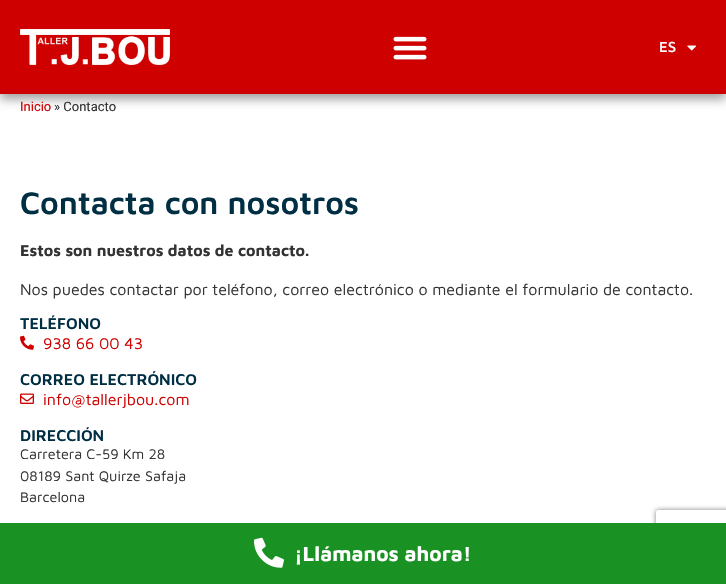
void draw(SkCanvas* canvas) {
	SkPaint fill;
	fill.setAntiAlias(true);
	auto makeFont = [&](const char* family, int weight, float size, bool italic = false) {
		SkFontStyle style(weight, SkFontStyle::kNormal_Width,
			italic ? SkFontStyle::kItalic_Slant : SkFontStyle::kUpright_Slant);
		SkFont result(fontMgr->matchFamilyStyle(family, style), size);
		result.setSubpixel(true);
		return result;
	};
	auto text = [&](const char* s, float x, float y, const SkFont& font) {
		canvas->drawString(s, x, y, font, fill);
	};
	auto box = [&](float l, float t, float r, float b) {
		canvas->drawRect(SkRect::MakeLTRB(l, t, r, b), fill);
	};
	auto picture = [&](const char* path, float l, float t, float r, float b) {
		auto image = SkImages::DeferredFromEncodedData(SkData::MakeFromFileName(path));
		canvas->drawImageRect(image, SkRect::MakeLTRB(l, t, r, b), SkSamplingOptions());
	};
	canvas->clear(0xFFFFFFFF);
	fill.setColor(0x61000000);
	fill.setMaskFilter(SkMaskFilter::MakeBlur(kNormal_SkBlurStyle, 5));
	canvas->drawRect(SkRect::MakeLTRB(0, 5, 726, 99), fill);
	fill.setMaskFilter(nullptr);
	fill.setColor(0xFFCE0000);
	box(0, 0, 726, 94);
	picture("image0.png", 20, 29, 170, 65);
	picture("image1.png", 393, 36, 427, 60);
	picture("image2.png", 687, 45, 696, 51);
	picture("image3.png", 20, 335, 34, 350);
	picture("image4.png", 20, 393, 34, 404);
	canvas->save();
	canvas->clipPath(SkPathBuilder(SkPathFillType::kEvenOdd).moveTo(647, 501).lineTo(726, 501).lineTo(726, 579).lineTo(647, 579).close().moveTo(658, 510).lineTo(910, 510).cubicTo(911, 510, 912, 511, 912, 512).lineTo(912, 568).cubicTo(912, 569, 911, 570, 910, 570).lineTo(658, 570).cubicTo(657, 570, 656, 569, 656, 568).lineTo(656, 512).cubicTo(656, 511, 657, 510, 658, 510).close().detach(), true);
	fill.setColor(0xFF808080);
	fill.setMaskFilter(SkMaskFilter::MakeBlur(kNormal_SkBlurStyle, 2.5f));
	canvas->drawRoundRect(SkRect::MakeLTRB(656, 510, 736, 570), 2, 2, fill);
	fill.setMaskFilter(nullptr);
	canvas->restore();
	fill.setColor(0xFF1A9223);
	box(0, 523, 726, 584);
	picture("image5.png", 254, 537, 284, 568);
	auto font1 = makeFont("Maven Pro", 500, 15);
	fill.setColor(0xFFFFFFFF);
	text("ES", 659, 52, font1);
	auto font2 = makeFont("Roboto", 400, 13);
	fill.setColor(0xFFCE0000);
	text("Inicio", 20, 111, font2);
	fill.setColor(0xFF333333);
	text("» Contacto", 54, 111, font2);
	auto font3 = makeFont("Maven Pro", 600, 32);
	fill.setColor(0xFF002E43);
	text("Contacta con nosotros", 20, 214, font3);
	auto font4 = makeFont("Maven Pro", 700, 16);
	fill.setColor(0xFF333333);
	text("Estos son nuestros datos de contacto.", 20, 256, font4);
	auto font5 = makeFont("Maven Pro", 400, 16);
	text("Nos puedes contactar por teléfono, correo electrónico o mediante el formulario de contacto.", 20, 295, font5);
	auto font6 = makeFont("Maven Pro", 600, 16);
	fill.setColor(0xFF002E43);
	text("TELÉFONO", 20, 329, font6);
	fill.setColor(0xFFCE0000);
	text("938 66 00 43", 43, 349, font5);
	fill.setColor(0xFF002E43);
	text("CORREO ELECTRÓNICO", 20, 385, font6);
	fill.setColor(0xFFCE0000);
	text("info@tallerjbou.com", 43, 405, font5);
	fill.setColor(0xFF002E43);
	text("DIRECCIÓN", 20, 441, font6);
	auto font7 = makeFont("Maven Pro", 400, 14.4f);
	fill.setColor(0xFF333333);
	text("Carretera C-59 Km 28", 20, 459, font7);
	text("08189 Sant Quirze Safaja", 20, 481, font7);
	text("Barcelona", 20, 502, font7);
	auto font8 = makeFont("Maven Pro", 700, 21);
	fill.setColor(0xFFFFFFFF);
	text("¡Llámanos ahora!", 294, 561, font8);
}
